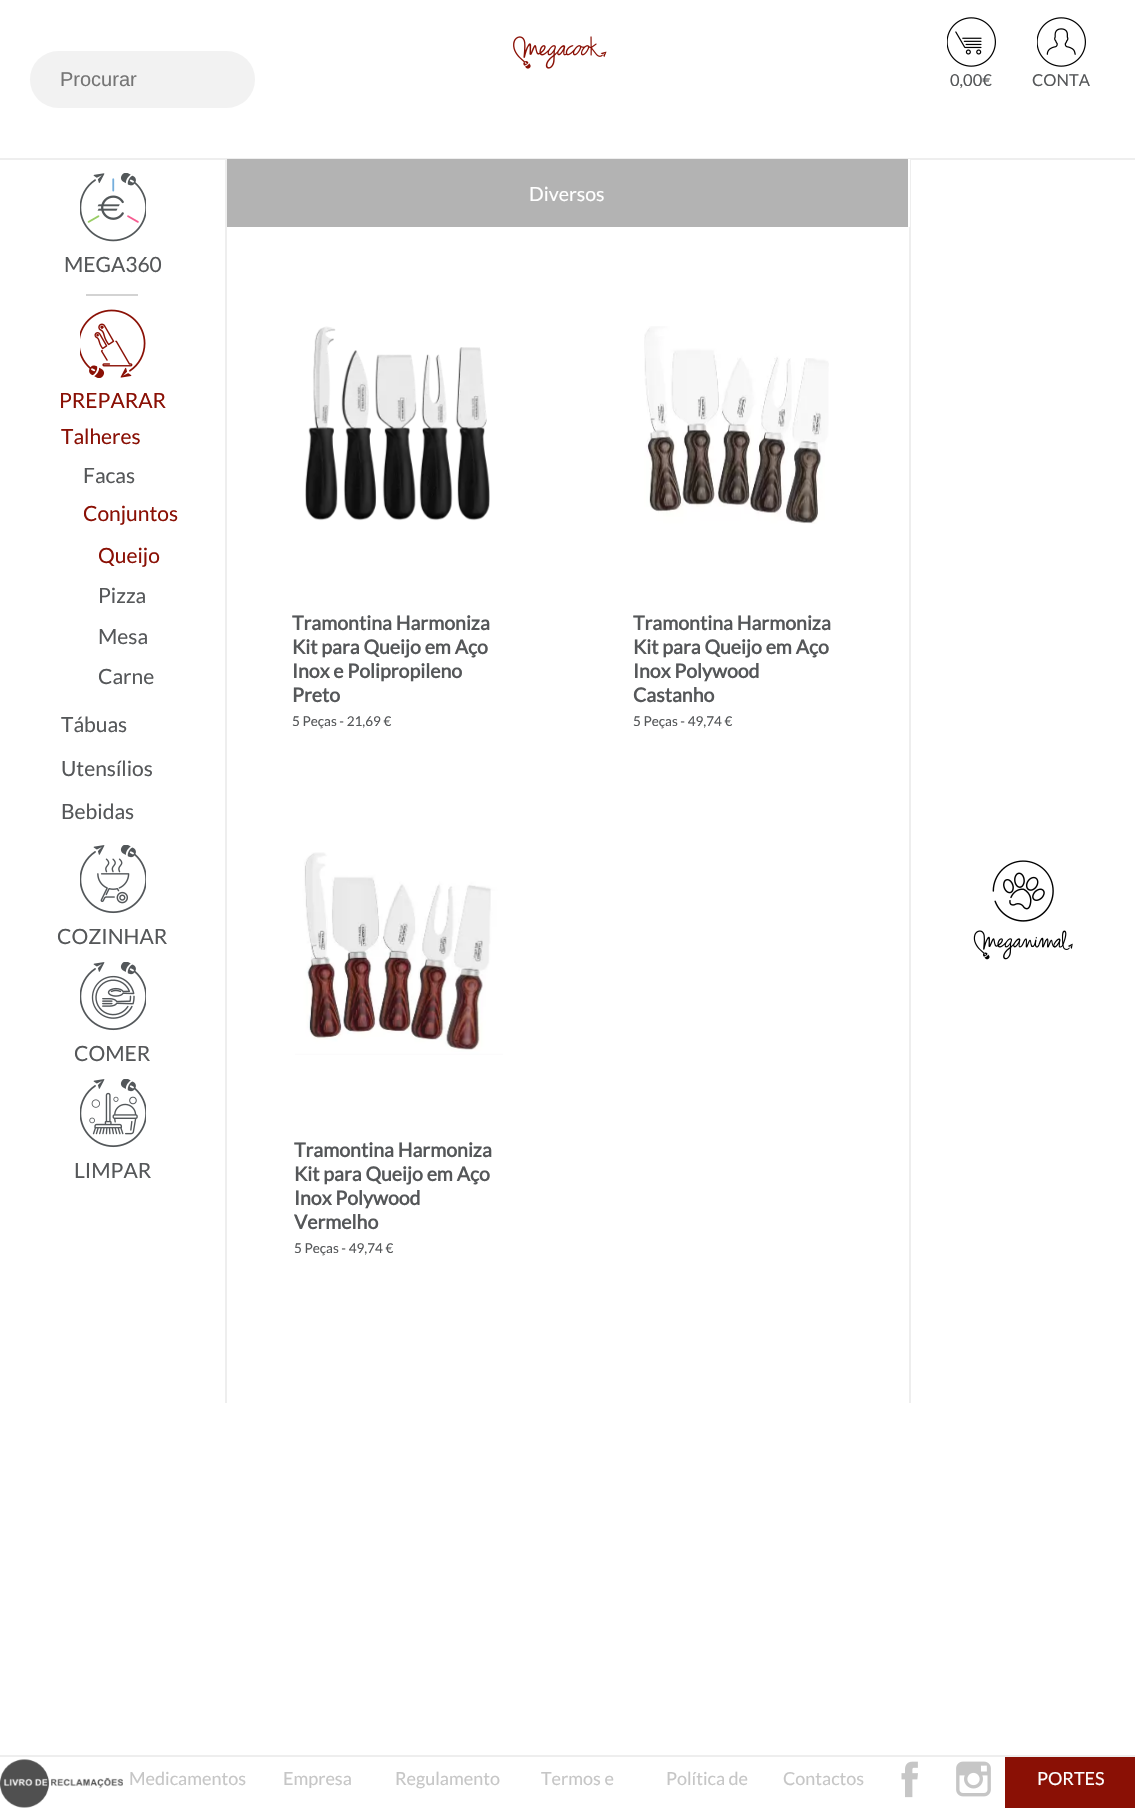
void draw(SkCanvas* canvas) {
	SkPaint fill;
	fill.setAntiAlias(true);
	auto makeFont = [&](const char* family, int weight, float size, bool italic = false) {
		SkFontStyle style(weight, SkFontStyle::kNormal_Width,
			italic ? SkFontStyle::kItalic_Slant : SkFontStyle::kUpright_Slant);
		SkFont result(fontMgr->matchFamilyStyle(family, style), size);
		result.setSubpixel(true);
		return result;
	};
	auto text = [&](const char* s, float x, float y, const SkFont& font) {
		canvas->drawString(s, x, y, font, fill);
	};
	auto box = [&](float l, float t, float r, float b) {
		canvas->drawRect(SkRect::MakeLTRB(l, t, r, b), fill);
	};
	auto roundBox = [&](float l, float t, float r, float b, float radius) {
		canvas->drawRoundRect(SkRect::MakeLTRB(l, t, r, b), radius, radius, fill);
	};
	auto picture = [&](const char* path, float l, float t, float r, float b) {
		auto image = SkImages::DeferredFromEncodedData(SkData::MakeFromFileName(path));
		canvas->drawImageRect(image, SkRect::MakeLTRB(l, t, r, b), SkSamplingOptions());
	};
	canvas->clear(0xFFFFFFFF);
	fill.setColor(0xFFEEEEEE);
	box(0, 158, 1135, 160);
	picture("image0.png", 513, 36, 607, 69);
	fill.setColor(0xFFF2F2F2);
	roundBox(30, 51, 255, 108, 28.5f);
	picture("image1.png", 947, 17, 996, 67);
	picture("image2.png", 1037, 17, 1086, 67);
	picture("image3.png", 80, 173, 146, 242);
	fill.setColor(0xFFD3D3D3);
	box(86, 294, 138, 296);
	picture("image5.png", 94, 323, 133, 367);
	picture("image4.png", 80, 309, 146, 378);
	picture("image7.png", 97, 858, 130, 904);
	picture("image6.png", 80, 845, 146, 914);
	picture("image9.png", 91, 975, 135, 1019);
	picture("image8.png", 80, 962, 146, 1031);
	picture("image11.png", 89, 1092, 138, 1135);
	picture("image10.png", 80, 1079, 146, 1148);
	fill.setColor(0xFFEEEEEE);
	box(909, 159, 911, 1403);
	box(225, 159, 227, 1403);
	fill.setColor(0xFFB3B3B3);
	box(227, 159, 908, 227);
	fill.setColor(0xFFFFFFFF);
	box(908, 159, 910, 227);
	picture("image12.png", 305, 326, 490, 521);
	picture("image13.png", 644, 326, 829, 524);
	picture("image14.png", 295, 852, 503, 1055);
	picture("image15.png", 973, 860, 1073, 960);
	fill.setColor(0xFFEEEEEE);
	box(0, 1755, 1135, 1757);
	picture("image16.png", 0, 1759, 123, 1808);
	picture("image17.png", 901, 1761, 918, 1798);
	picture("image18.png", 956, 1761, 991, 1797);
	fill.setColor(0xFF8A1005);
	box(1005, 1757, 1135, 1808);
	auto font1 = makeFont("Liberation Sans", 400, 20);
	fill.setColor(0xFF757575);
	text("Procurar", 60, 86, font1);
	auto font2 = makeFont("Lato", 400, 16.5f);
	fill.setColor(0xFF555759);
	text("0,00€", 950, 86, font2);
	text("CONTA", 1032, 86, font2);
	auto font3 = makeFont("Lato", 400, 21);
	text("MEGA360", 64, 272, font3);
	fill.setColor(0xFF8A1005);
	text("PREPARAR", 59, 408, font3);
	text("Talheres", 61, 444, font3);
	fill.setColor(0xFF555759);
	text("Facas", 83, 483, font3);
	fill.setColor(0xFF8A1005);
	text("Conjuntos", 83, 521, font3);
	text("Queijo", 98, 563, font3);
	fill.setColor(0xFF555759);
	text("Pizza", 98, 603, font3);
	text("Mesa", 98, 644, font3);
	text("Carne", 98, 684, font3);
	text("Tábuas", 61, 732, font3);
	text("Utensílios", 61, 776, font3);
	text("Bebidas", 61, 819, font3);
	text("COZINHAR", 57, 944, font3);
	text("COMER", 74, 1061, font3);
	text("LIMPAR", 74, 1178, font3);
	auto font4 = makeFont("Lato", 400, 19.5f);
	fill.setColor(0xFFFFFFFF);
	text("Diversos", 529, 201, font4);
	auto font5 = makeFont("Lato", 700, 19.5f);
	fill.setColor(0xFF555759);
	text("Tramontina Harmoniza", 292, 630, font5);
	text("Kit para Queijo em Aço", 292, 654, font5);
	text("Inox e Polipropileno", 292, 678, font5);
	text("Preto", 292, 702, font5);
	auto font6 = makeFont("Lato", 400, 13.5f);
	text("5 Peças - 21,69 €", 292, 726, font6);
	text("Tramontina Harmoniza", 633, 630, font5);
	text("Kit para Queijo em Aço", 633, 654, font5);
	text("Inox Polywood", 633, 678, font5);
	text("Castanho", 633, 702, font5);
	text("5 Peças - 49,74 €", 633, 726, font6);
	text("Tramontina Harmoniza", 294, 1157, font5);
	text("Kit para Queijo em Aço", 294, 1181, font5);
	text("Inox Polywood", 294, 1205, font5);
	text("Vermelho", 294, 1229, font5);
	text("5 Peças - 49,74 €", 294, 1253, font6);
	auto font7 = makeFont("Lato", 400, 18);
	fill.setColor(0xFFC6C6C6);
	text("Medicamentos", 129, 1785, font7);
	text("Empresa", 283, 1785, font7);
	text("Regulamento", 395, 1785, font7);
	text("Termos e", 541, 1785, font7);
	text("Política de", 666, 1785, font7);
	text("Contactos", 783, 1785, font7);
	fill.setColor(0xFFFFFFFF);
	text("PORTES", 1037, 1785, font7);
}
